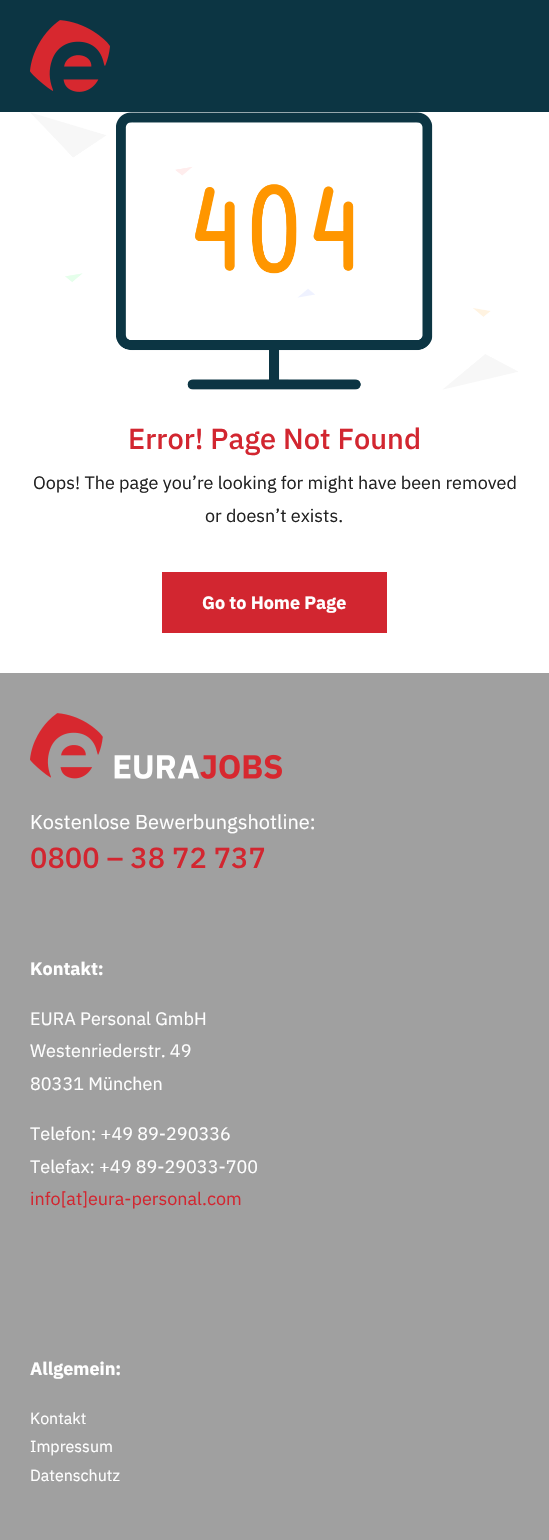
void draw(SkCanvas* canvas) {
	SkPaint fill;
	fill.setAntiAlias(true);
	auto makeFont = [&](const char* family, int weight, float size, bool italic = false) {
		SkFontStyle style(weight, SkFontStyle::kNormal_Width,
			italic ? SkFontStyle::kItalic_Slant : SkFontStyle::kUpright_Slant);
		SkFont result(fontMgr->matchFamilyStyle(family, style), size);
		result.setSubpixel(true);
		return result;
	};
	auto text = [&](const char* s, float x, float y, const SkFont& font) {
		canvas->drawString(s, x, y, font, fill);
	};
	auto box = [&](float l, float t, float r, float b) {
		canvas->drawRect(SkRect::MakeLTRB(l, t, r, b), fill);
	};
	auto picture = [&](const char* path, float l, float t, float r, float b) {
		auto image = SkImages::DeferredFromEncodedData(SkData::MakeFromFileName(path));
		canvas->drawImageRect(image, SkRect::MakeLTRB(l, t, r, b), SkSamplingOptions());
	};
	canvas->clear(0xFFFFFFFF);
	fill.setColor(0xFF0C3543);
	box(0, 0, 549, 112);
	picture("image0.png", 30, 20, 110, 92);
	picture("image1.png", 31, 112, 518, 390);
	fill.setColor(0xFFD22630);
	box(162, 572, 387, 633);
	fill.setColor(0xFFA0A0A0);
	box(0, 673, 549, 1540);
	picture("image2.png", 30, 713, 282, 779);
	auto font1 = makeFont("IBM Plex Sans", 500, 29);
	fill.setColor(0xFFD22630);
	text("Error! Page Not Found", 128, 449, font1);
	auto font2 = makeFont("IBM Plex Sans", 400, 18);
	fill.setColor(0xFF222222);
	text("Oops! The page you’re looking for might have been removed", 33, 489, font2);
	text("or doesn’t exists.", 205, 522, font2);
	auto font3 = makeFont("IBM Plex Sans", 700, 18);
	fill.setColor(0xFFFFFFFF);
	text("Go to Home Page", 202, 609, font3);
	auto font4 = makeFont("IBM Plex Sans", 400, 20);
	text("Kostenlose Bewerbungshotline:", 30, 829, font4);
	fill.setColor(0xFFD22630);
	text("0800 – 38 72 737", 30, 868, font1);
	fill.setColor(0xFFFFFFFF);
	text("Kontakt:", 30, 975, font3);
	text("EURA Personal GmbH", 30, 1025, font2);
	text("Westenriederstr. 49", 30, 1057, font2);
	text("80331 München", 30, 1090, font2);
	text("Telefon: +49 89-290336", 30, 1140, font2);
	text("Telefax: +49 89-29033-700", 30, 1173, font2);
	fill.setColor(0xFFD22630);
	text("info[at]eura-personal.com", 30, 1205, font2);
	fill.setColor(0xFFFFFFFF);
	text("Allgemein:", 30, 1375, font3);
	auto font5 = makeFont("IBM Plex Sans", 400, 16);
	text("Kontakt", 30, 1424, font5);
	text("Impressum", 30, 1452, font5);
	text("Datenschutz", 30, 1481, font5);
}
